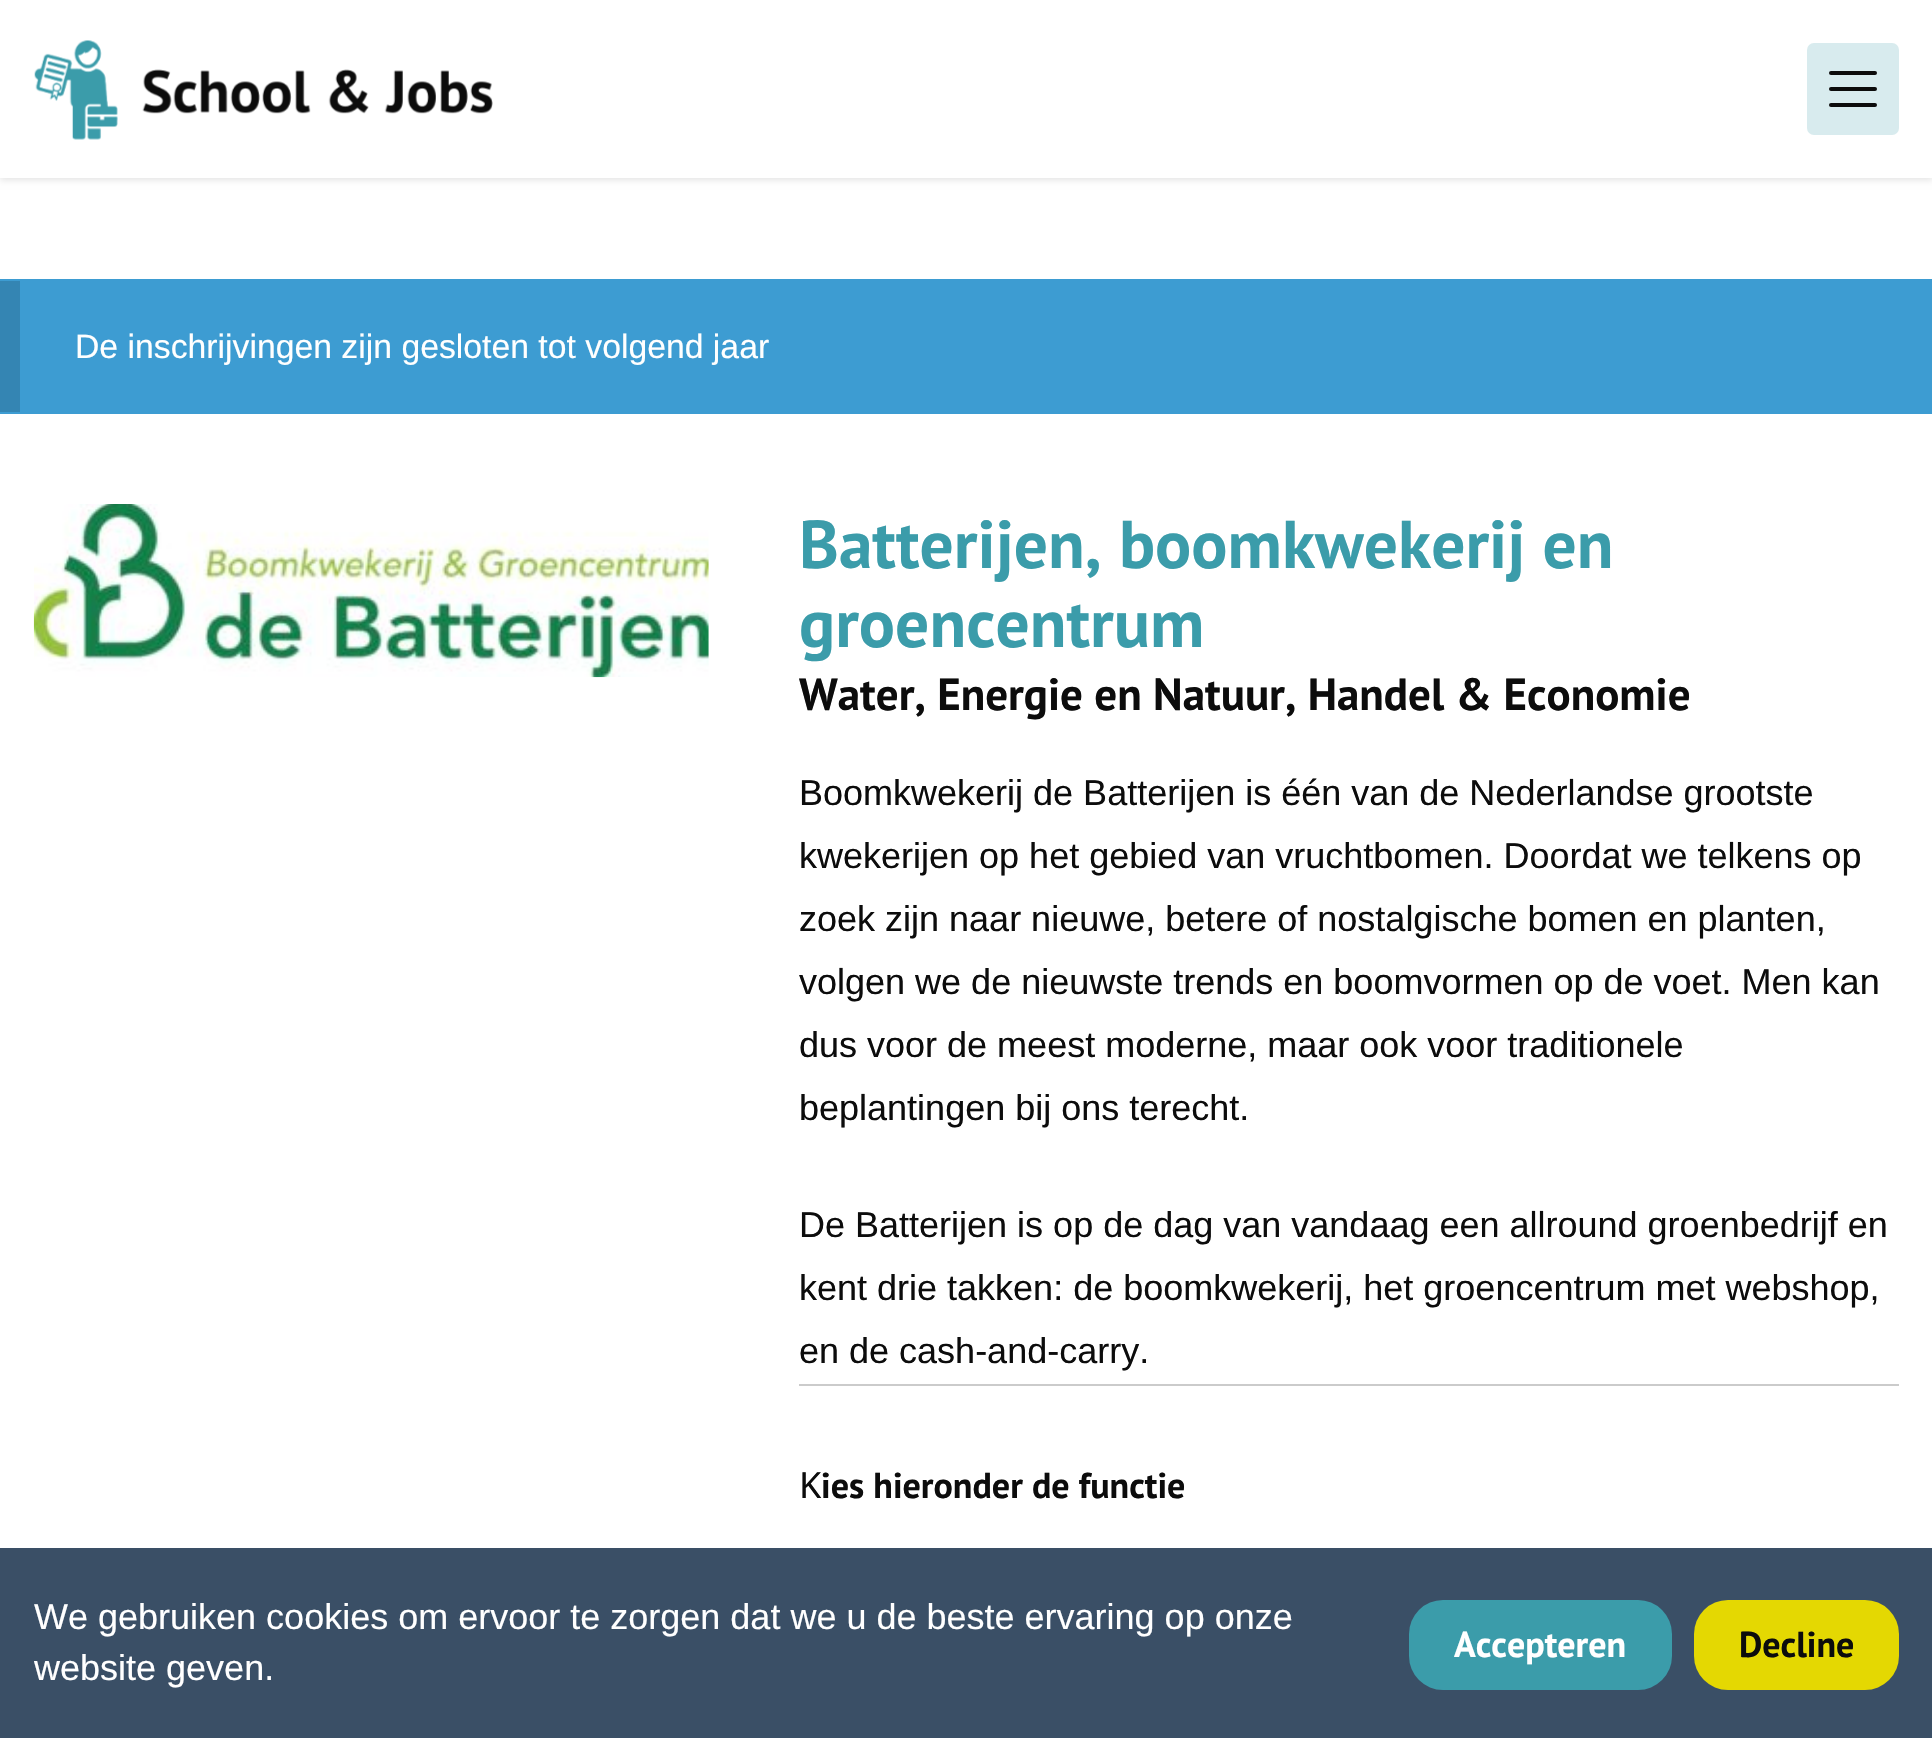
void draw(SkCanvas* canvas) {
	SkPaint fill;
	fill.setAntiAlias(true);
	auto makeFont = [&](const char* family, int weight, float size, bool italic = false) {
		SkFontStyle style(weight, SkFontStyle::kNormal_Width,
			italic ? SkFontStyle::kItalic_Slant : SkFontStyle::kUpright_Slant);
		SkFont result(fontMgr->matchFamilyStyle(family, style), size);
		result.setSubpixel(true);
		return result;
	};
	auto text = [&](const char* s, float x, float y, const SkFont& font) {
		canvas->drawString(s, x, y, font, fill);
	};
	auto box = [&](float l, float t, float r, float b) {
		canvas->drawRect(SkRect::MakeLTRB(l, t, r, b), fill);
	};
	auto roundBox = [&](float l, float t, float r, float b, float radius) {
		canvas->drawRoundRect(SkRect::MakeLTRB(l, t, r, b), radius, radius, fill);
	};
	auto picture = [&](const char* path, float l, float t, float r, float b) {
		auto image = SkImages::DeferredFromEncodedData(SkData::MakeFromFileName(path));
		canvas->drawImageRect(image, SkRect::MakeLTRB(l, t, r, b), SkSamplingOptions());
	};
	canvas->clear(0xFFFFFFFF);
	canvas->save();
	canvas->clipPath(SkPathBuilder(SkPathFillType::kEvenOdd).moveTo(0, 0).lineTo(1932, 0).lineTo(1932, 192).lineTo(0, 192).close().moveTo(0, 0).lineTo(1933, 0).lineTo(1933, 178).lineTo(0, 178).close().detach(), true);
	fill.setColor(0x1C000000);
	fill.setMaskFilter(SkMaskFilter::MakeBlur(kNormal_SkBlurStyle, 3.5f));
	canvas->drawRect(SkRect::MakeLTRB(0, 2, 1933, 180), fill);
	fill.setMaskFilter(nullptr);
	canvas->restore();
	fill.setColor(0xE6FFFFFF);
	box(0, 177, 1932, 178);
	picture("image0.png", 34, 40, 493, 140);
	fill.setColor(0xFFD8EBEE);
	roundBox(1807, 43, 1899, 135, 7);
	fill.setColor(0xFF0C0C0C);
	roundBox(1829, 71, 1877, 75, 2);
	roundBox(1829, 87, 1877, 91, 2);
	roundBox(1829, 103, 1877, 107, 2);
	fill.setColor(0xFF3D9CD2);
	box(0, 279, 1932, 414);
	fill.setColor(0xFF3485B3);
	box(0, 281, 20, 412);
	picture("image1.png", 33, 504, 709, 678);
	fill.setColor(0xFFCBCBCB);
	box(799, 1384, 1899, 1386);
	fill.setColor(0xFF3A4F66);
	box(0, 1548, 1932, 1738);
	fill.setColor(0xFF3B9CAA);
	roundBox(1409, 1600, 1672, 1690, 34);
	fill.setColor(0xFFE4D802);
	roundBox(1694, 1600, 1899, 1690, 34);
	auto font1 = makeFont("Liberation Sans", 400, 33.75f);
	fill.setColor(0xFFFFFFFF);
	text("De inschrijvingen zijn gesloten tot volgend jaar", 75, 358, font1);
	auto font2 = makeFont("PT Sans", 700, 67.5f);
	fill.setColor(0xFF3B9CAA);
	text("Batterijen, boomkwekerij en", 799, 568, font2);
	text("groencentrum", 799, 647, font2);
	auto font3 = makeFont("PT Sans", 700, 45);
	fill.setColor(0xFF0C0C0C);
	text("Water, Energie en Natuur, Handel & Economie", 799, 710, font3);
	auto font4 = makeFont("Liberation Sans", 400, 36);
	text("Boomkwekerij de Batterijen is één van de Nederlandse grootste", 799, 805, font4);
	text("kwekerijen op het gebied van vruchtbomen. Doordat we telkens op", 799, 868, font4);
	text("zoek zijn naar nieuwe, betere of nostalgische bomen en planten,", 799, 931, font4);
	text("volgen we de nieuwste trends en boomvormen op de voet. Men kan", 799, 994, font4);
	text("dus voor de meest moderne, maar ook voor traditionele", 799, 1057, font4);
	text("beplantingen bij ons terecht.", 799, 1120, font4);
	text("De Batterijen is op de dag van vandaag een allround groenbedrijf en", 799, 1237, font4);
	text("kent drie takken: de boomkwekerij, het groencentrum met webshop,", 799, 1300, font4);
	text("en de cash-and-carry.", 799, 1363, font4);
	auto font5 = makeFont("Noto Sans", 400, 36);
	text("K", 799, 1498, font5);
	auto font6 = makeFont("PT Sans", 700, 36);
	text("ies hieronder de functie", 821, 1498, font6);
	fill.setColor(0xFFFFFFFF);
	text("We gebruiken cookies om ervoor te zorgen dat we u de beste ervaring op onze", 34, 1629, font4);
	text("website geven.", 34, 1680, font4);
	text("Accepteren", 1454, 1657, font6);
	fill.setColor(0xFF0C0C0C);
	text("Decline", 1739, 1657, font6);
}
